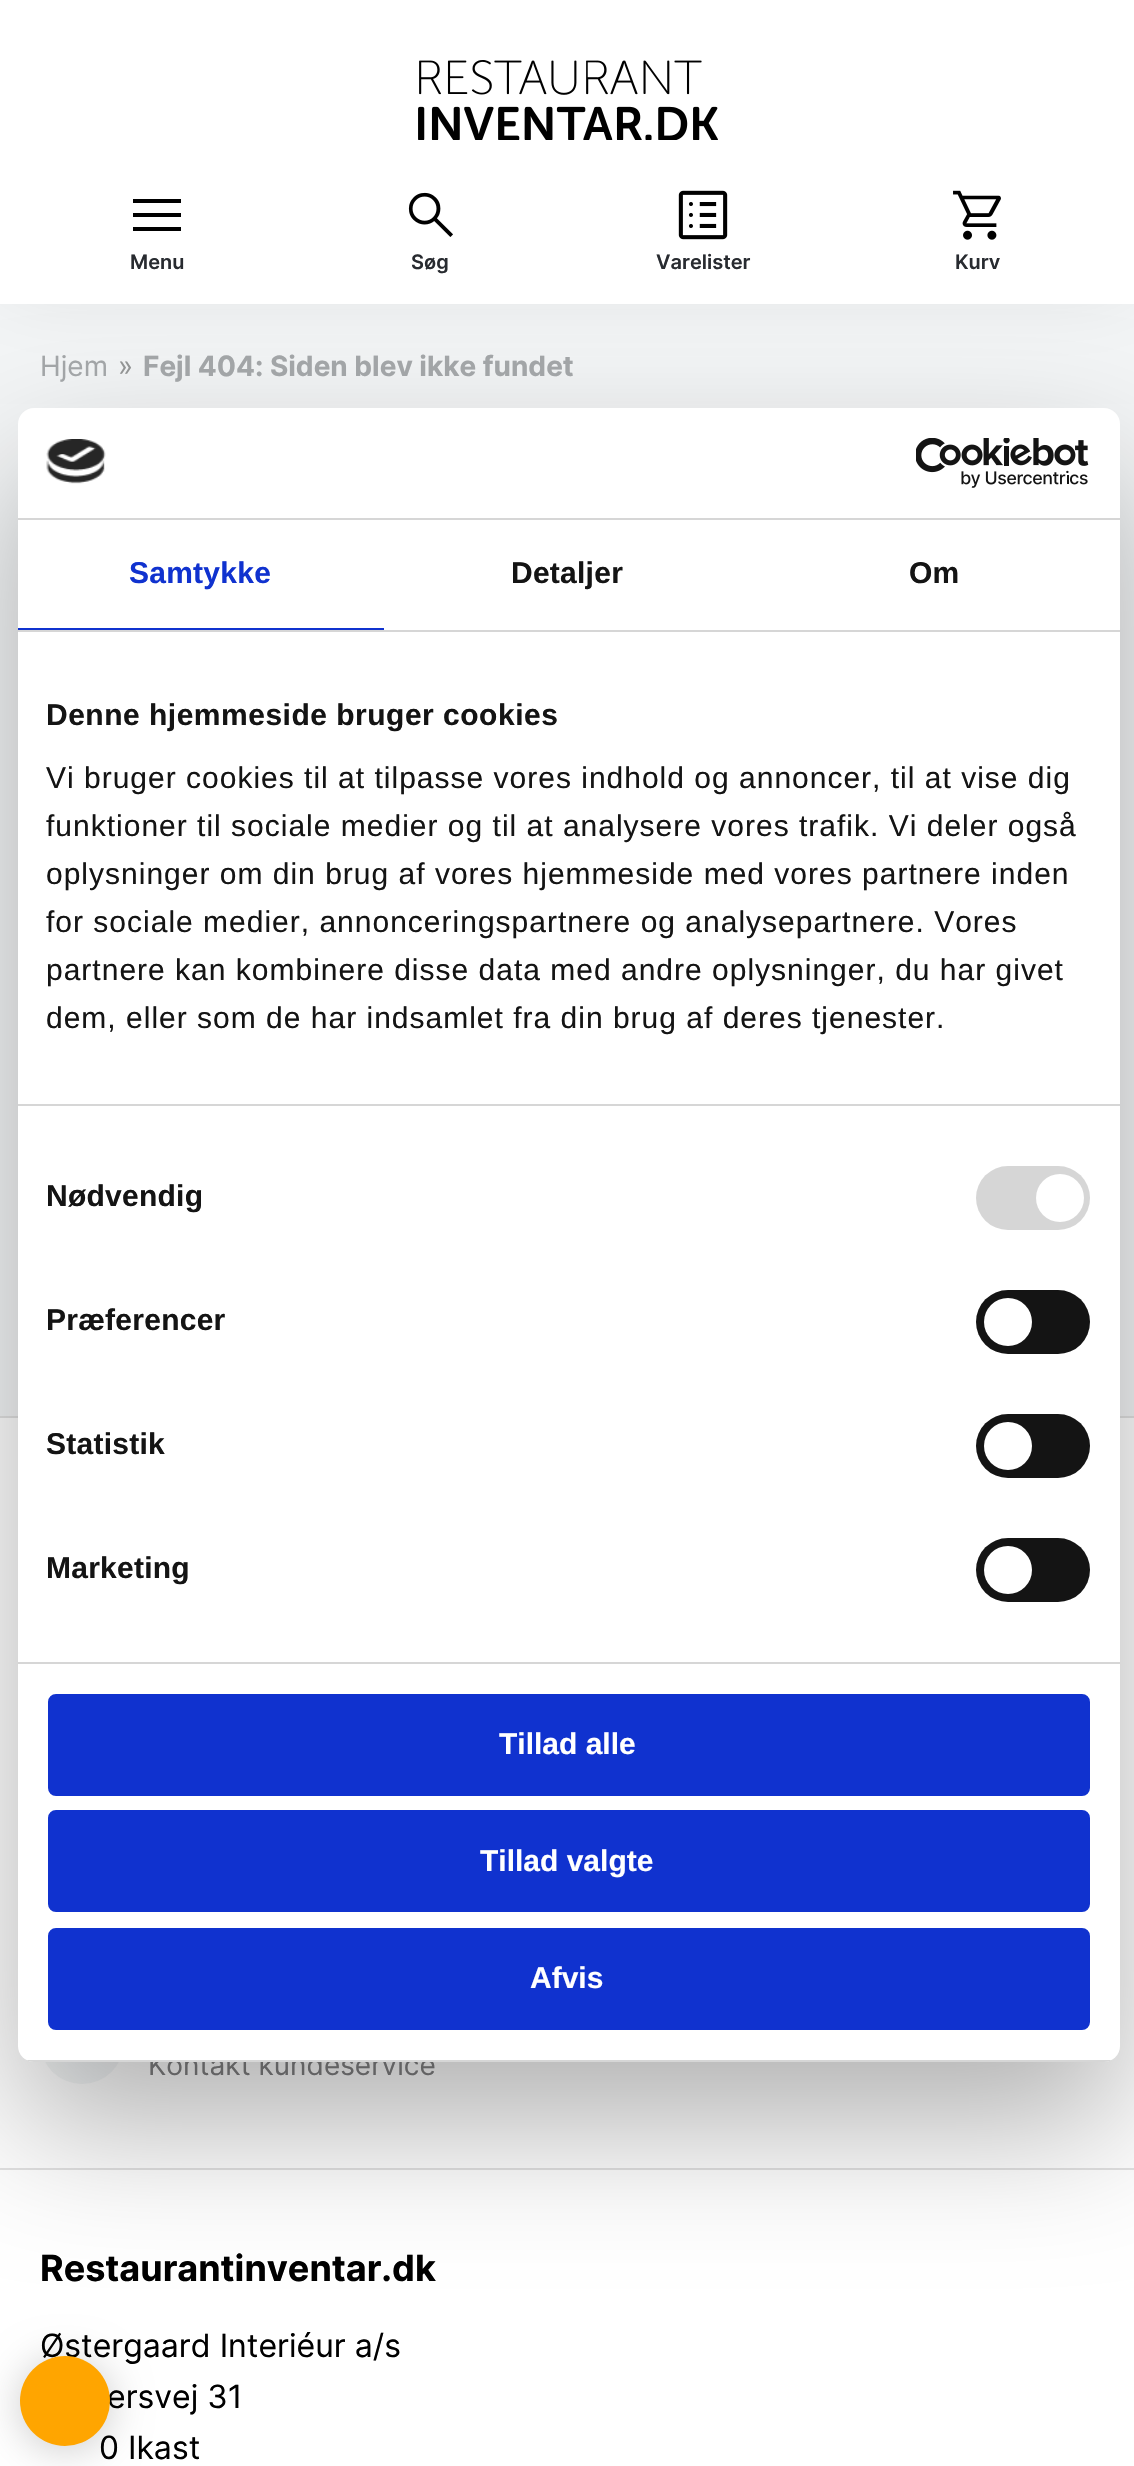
void draw(SkCanvas* canvas) {
	SkPaint fill;
	fill.setAntiAlias(true);
	auto makeFont = [&](const char* family, int weight, float size, bool italic = false) {
		SkFontStyle style(weight, SkFontStyle::kNormal_Width,
			italic ? SkFontStyle::kItalic_Slant : SkFontStyle::kUpright_Slant);
		SkFont result(fontMgr->matchFamilyStyle(family, style), size);
		result.setSubpixel(true);
		return result;
	};
	auto text = [&](const char* s, float x, float y, const SkFont& font) {
		canvas->drawString(s, x, y, font, fill);
	};
	auto spacedText = [&](const char* s, float x, float y, const SkFont& font, const SkPaint& ink, float letter, float word) {
		std::vector<SkGlyphID> glyphs(font.countText(s, strlen(s), SkTextEncoding::kUTF8));
		std::vector<float> xs(glyphs.size());
		font.textToGlyphs(s, strlen(s), SkTextEncoding::kUTF8, glyphs);
		font.getXPos(glyphs, xs, x);
		float extra = 0;
		for (size_t i = 0; i < glyphs.size(); i++) {
			xs[i] += extra;
			extra += letter + word * (glyphs[i] == font.unicharToGlyph(' '));
		}
		canvas->drawTextBlob(SkTextBlob::MakeFromPosHGlyphs(glyphs, xs, y, font), 0, 0, ink);
	};
	auto box = [&](float l, float t, float r, float b) {
		canvas->drawRect(SkRect::MakeLTRB(l, t, r, b), fill);
	};
	auto roundBox = [&](float l, float t, float r, float b, float radius) {
		canvas->drawRoundRect(SkRect::MakeLTRB(l, t, r, b), radius, radius, fill);
	};
	auto picture = [&](const char* path, float l, float t, float r, float b) {
		auto image = SkImages::DeferredFromEncodedData(SkData::MakeFromFileName(path));
		canvas->drawImageRect(image, SkRect::MakeLTRB(l, t, r, b), SkSamplingOptions());
	};
	canvas->clear(0xFFF4F6F7);
	fill.setColor(0x1A000000);
	fill.setMaskFilter(SkMaskFilter::MakeBlur(kNormal_SkBlurStyle, 40));
	canvas->drawRect(SkRect::MakeLTRB(0, -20, 1134, 284), fill);
	fill.setMaskFilter(nullptr);
	fill.setColor(0xFFFFFFFF);
	box(0, 0, 1134, 304);
	picture("image0.png", 418, 60, 718, 140);
	fill.setColor(0xFF000000);
	canvas->drawPath(SkPathBuilder().moveTo(133, 231).lineTo(133, 227).lineTo(181, 227).lineTo(181, 231).close().moveTo(133, 217).lineTo(133, 213).lineTo(181, 213).lineTo(181, 217).close().moveTo(133, 203).lineTo(133, 199).lineTo(181, 199).lineTo(181, 203).close().detach(), fill);
	picture("image1.png", 408, 192, 453, 237);
	picture("image2.png", 678, 190, 728, 240);
	picture("image3.png", 953, 190, 1001, 240);
	fill.setColor(0xFFFFFFFF);
	box(0, 1418, 1134, 2466);
	fill.setColor(0xFFE2E2E2);
	box(0, 1416, 1134, 1418);
	box(0, 2168, 1134, 2170);
	fill.setColor(0xFFF4F6F7);
	canvas->drawCircle(82, 2042, 42, fill);
	fill.setColor(0x4D000000);
	fill.setMaskFilter(SkMaskFilter::MakeBlur(kNormal_SkBlurStyle, 68));
	canvas->drawRoundRect(SkRect::MakeLTRB(18, 472, 1120, 2126), 16, 16, fill);
	fill.setMaskFilter(nullptr);
	fill.setColor(0x33000000);
	fill.setMaskFilter(SkMaskFilter::MakeBlur(kNormal_SkBlurStyle, 20));
	canvas->drawRoundRect(SkRect::MakeLTRB(20, 2360, 110, 2450), 45, 45, fill);
	fill.setMaskFilter(nullptr);
	auto font1 = makeFont("Inter", 600, 20);
	fill.setColor(0xFF282B30);
	text("Menu", 130, 269, font1);
	text("Søg", 411, 269, font1);
	text("Varelister", 656, 269, font1);
	text("Kurv", 955, 269, font1);
	auto font2 = makeFont("Inter", 400, 28);
	fill.setColor(0xFFA2A5A7);
	text("Hjem", 40, 376, font2);
	fill.setColor(0xFF929494);
	text("»", 118, 376, font2);
	auto font3 = makeFont("Inter", 700, 28);
	fill.setColor(0xFFA2A5A7);
	text("Fejl 404: Siden blev ikke fundet", 143, 376, font3);
	fill.setColor(0xFF626263);
	text("Kontakt kundeservice", 148, 2075, font2);
	fill.setColor(0xFFFFFFFF);
	roundBox(18, 408, 1120, 2062, 16);
	fill.setColor(0xFF1032CF);
	canvas->drawRoundRect(SkRect::MakeLTRB(50, 1930, 1088, 2028), 6, 6, fill);
	fill.setStyle(SkPaint::kStroke_Style);
	fill.setStrokeWidth(4);
	canvas->drawRoundRect(SkRect::MakeLTRB(50, 1930, 1088, 2028), 6, 6, fill);
	auto font4 = makeFont("Liberation Sans", 700, 30);
	fill.setStyle(SkPaint::kFill_Style);
	fill.setColor(0xFFFFFFFF);
	text("Afvis", 530, 1988, font4);
	fill.setColor(0xFF1032CF);
	canvas->drawRoundRect(SkRect::MakeLTRB(50, 1812, 1088, 1910), 6, 6, fill);
	fill.setStyle(SkPaint::kStroke_Style);
	canvas->drawRoundRect(SkRect::MakeLTRB(50, 1812, 1088, 1910), 6, 6, fill);
	fill.setStyle(SkPaint::kFill_Style);
	fill.setColor(0xFFFFFFFF);
	text("Tillad valgte", 480, 1871, font4);
	fill.setColor(0xFF1032CF);
	canvas->drawRoundRect(SkRect::MakeLTRB(50, 1696, 1088, 1794), 6, 6, fill);
	fill.setStyle(SkPaint::kStroke_Style);
	canvas->drawRoundRect(SkRect::MakeLTRB(50, 1696, 1088, 1794), 6, 6, fill);
	fill.setStyle(SkPaint::kFill_Style);
	fill.setColor(0xFFFFFFFF);
	text("Tillad alle", 499, 1754, font4);
	canvas->save();
	canvas->clipPath(SkPathBuilder().moveTo(34, 408).lineTo(1104, 408).cubicTo(1113, 408, 1120, 415, 1120, 424).lineTo(1120, 2046).cubicTo(1120, 2055, 1113, 2062, 1104, 2062).lineTo(34, 2062).cubicTo(25, 2062, 18, 2055, 18, 2046).lineTo(18, 424).cubicTo(18, 415, 25, 408, 34, 408).close().detach(), true);
	fill.setColor(0xFFD6D6D6);
	box(18, 2060, 1120, 2062);
	canvas->restore();
	fill.setColor(0xFF141414);
	roundBox(976, 1538, 1090, 1602, 32);
	fill.setColor(0xFFFFFFFF);
	canvas->drawCircle(1008, 1570, 24, fill);
	fill.setColor(0xFF141414);
	roundBox(976, 1414, 1090, 1478, 32);
	fill.setColor(0xFFFFFFFF);
	canvas->drawCircle(1008, 1446, 24, fill);
	fill.setColor(0xFF141414);
	roundBox(976, 1290, 1090, 1354, 32);
	fill.setColor(0xFFFFFFFF);
	canvas->drawCircle(1008, 1322, 24, fill);
	fill.setColor(0xFFD6D6D6);
	roundBox(976, 1166, 1090, 1230, 32);
	fill.setColor(0xFFFFFFFF);
	canvas->drawCircle(1060, 1198, 24, fill);
	auto font5 = makeFont("Liberation Sans", 400, 30);
	fill.setColor(0xFF141414);
	spacedText("dem, eller som de har indsamlet fra din brug af deres tjenester.", 46, 1028, font5, fill, 1, 0);
	spacedText("partnere kan kombinere disse data med andre oplysninger, du har givet", 46, 980, font5, fill, 1, 0);
	spacedText("for sociale medier, annonceringspartnere og analysepartnere. Vores", 46, 932, font5, fill, 1, 0);
	spacedText("oplysninger om din brug af vores hjemmeside med vores partnere inden", 46, 884, font5, fill, 1, 0);
	spacedText("funktioner til sociale medier og til at analysere vores trafik. Vi deler også", 46, 836, font5, fill, 1, 0);
	spacedText("Vi bruger cookies til at tilpasse vores indhold og annoncer, til at vise dig", 46, 788, font5, fill, 1, 0);
	spacedText("Denne hjemmeside bruger cookies", 46, 725, font4, fill, 0.5f, 0);
	fill.setColor(0xFFD6D6D6);
	box(18, 1104, 1120, 1106);
	fill.setColor(0xFF141414);
	spacedText("Om", 909, 583, font4, fill, 0.25f, 0);
	spacedText("Detaljer", 511, 583, font4, fill, 0.25f, 0);
	fill.setColor(0xFF1032CF);
	spacedText("Samtykke", 129, 583, font4, fill, 0.25f, 0);
	box(18, 628, 384, 630);
	fill.setColor(0xFFD6D6D6);
	box(18, 630, 1120, 632);
	fill.setColor(0xFF141414);
	spacedText("Marketing", 46, 1578, font4, fill, 0.25f, 0);
	spacedText("Statistik", 46, 1454, font4, fill, 0.25f, 0);
	spacedText("Præferencer", 46, 1330, font4, fill, 0.25f, 0);
	spacedText("Nødvendig", 46, 1206, font4, fill, 0.25f, 0);
	fill.setColor(0xFFD6D6D6);
	box(18, 1662, 1120, 1664);
	picture("image5.png", 916, 438, 1089, 488);
	picture("image4.png", 46, 439, 106, 484);
	box(18, 518, 1120, 520);
	auto font6 = makeFont("Inter", 700, 36);
	fill.setColor(0xFF000000);
	text("Restaurantinventar.dk", 40, 2281, font6);
	auto font7 = makeFont("Inter", 400, 32);
	text("Østergaard Interiéur a/s", 40, 2357, font7);
	text("ersvej 31", 107, 2408, font7);
	text("0 Ikast", 99, 2459, font7);
	fill.setColor(0xFFFFA500);
	canvas->drawCircle(65, 2401, 45, fill);
}
